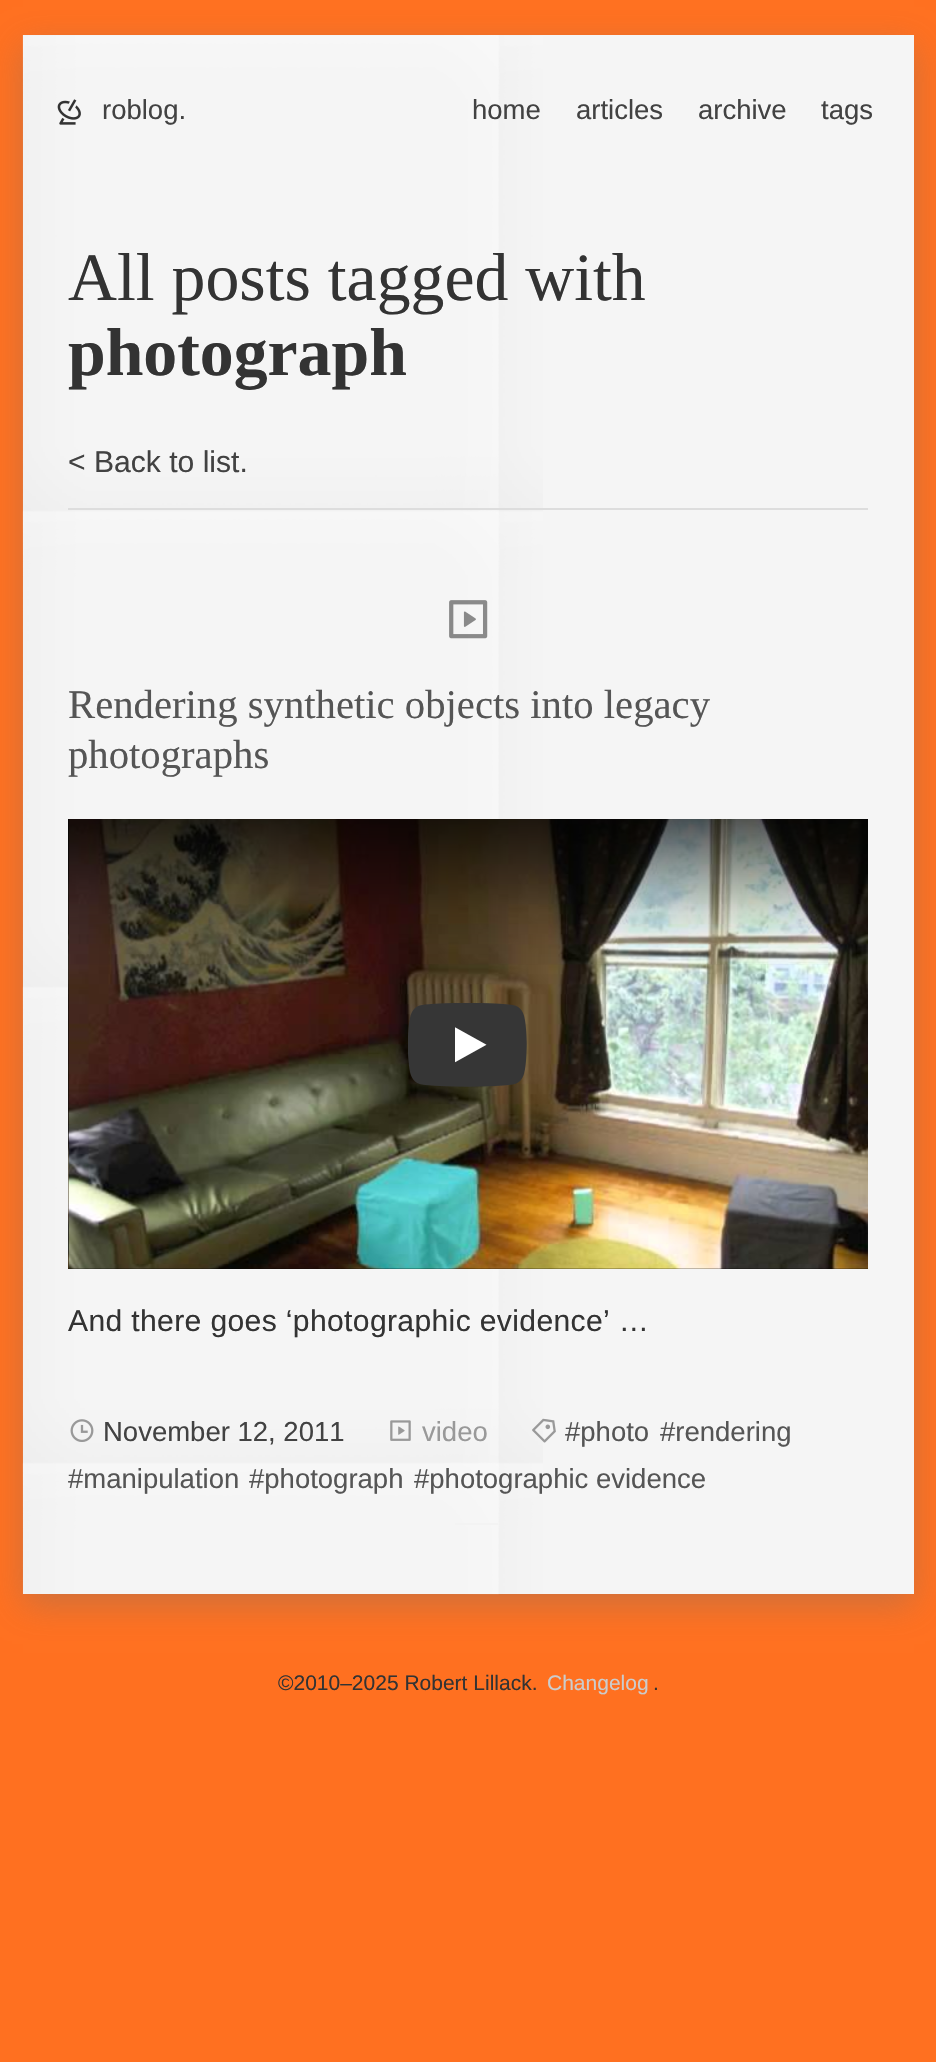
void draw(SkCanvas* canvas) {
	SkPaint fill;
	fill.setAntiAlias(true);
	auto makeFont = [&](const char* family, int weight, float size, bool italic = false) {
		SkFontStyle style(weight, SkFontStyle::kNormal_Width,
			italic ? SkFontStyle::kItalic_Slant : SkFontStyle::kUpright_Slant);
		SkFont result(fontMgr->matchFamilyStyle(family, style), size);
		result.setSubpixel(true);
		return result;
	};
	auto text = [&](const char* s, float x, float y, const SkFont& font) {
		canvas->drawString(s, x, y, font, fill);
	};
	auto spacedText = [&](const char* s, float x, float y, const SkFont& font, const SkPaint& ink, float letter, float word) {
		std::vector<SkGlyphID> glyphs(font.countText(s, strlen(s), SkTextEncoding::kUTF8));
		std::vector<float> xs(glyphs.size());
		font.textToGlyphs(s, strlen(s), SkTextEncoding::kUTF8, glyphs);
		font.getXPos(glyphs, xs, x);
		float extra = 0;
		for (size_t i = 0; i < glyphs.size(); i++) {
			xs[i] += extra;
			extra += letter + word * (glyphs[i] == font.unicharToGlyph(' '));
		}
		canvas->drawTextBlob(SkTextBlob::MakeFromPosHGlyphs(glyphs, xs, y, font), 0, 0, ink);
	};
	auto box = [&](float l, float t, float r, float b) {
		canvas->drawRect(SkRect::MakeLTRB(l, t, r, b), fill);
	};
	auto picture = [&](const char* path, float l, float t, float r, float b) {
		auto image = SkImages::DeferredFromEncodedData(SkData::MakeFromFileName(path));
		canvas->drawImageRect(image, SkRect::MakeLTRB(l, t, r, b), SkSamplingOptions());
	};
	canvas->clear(0xFFFF7020);
	fill.setColor(0x59707070);
	fill.setMaskFilter(SkMaskFilter::MakeBlur(kNormal_SkBlurStyle, 16));
	canvas->drawRect(SkRect::MakeLTRB(23, 46, 914, 1605), fill);
	fill.setMaskFilter(nullptr);
	fill.setColor(0xFFF5F5F5);
	box(23, 35, 914, 1594);
	picture("image0.png", 22, 35, 543, 1595);
	picture("image1.png", 57, 99, 81, 125);
	fill.setColor(0xFFDDDDDD);
	box(68, 508, 868, 510);
	picture("image2.png", 449, 600, 488, 639);
	fill.setColor(0xFF000000);
	box(68, 819, 868, 1269);
	picture("image3.png", 68, 819, 868, 1269);
	{
		const SkColor colors[] = {0xAB000000, 0x8A000000, 0x26000000, 0x0D000000, 0x00000000};
		const float stops[] = {0, 0.14f, 0.54f, 0.72f, 0.94f};
		const SkPoint ends[] = {{468, 819}, {468, 992}};
		fill.setShader(SkGradientShader::MakeLinear(ends, colors, stops, 5, SkTileMode::kClamp));
		fill.setAlpha(255);
	}
	box(68, 819, 868, 965);
	picture("image4.png", 408, 1003, 527, 1087);
	fill.setShader(nullptr);
	fill.setColor(0xFFF3F3F3);
	box(455, 1523, 498, 1525);
	picture("image5.png", 70, 1419, 94, 1442);
	picture("image6.png", 390, 1420, 411, 1441);
	picture("image7.png", 532, 1418, 556, 1443);
	auto font1 = makeFont("Liberation Sans", 400, 27.5f);
	fill.setColor(0xFF424242);
	text("roblog.", 102, 119, font1);
	text("home", 472, 119, font1);
	text("articles", 576, 119, font1);
	text("archive", 698, 119, font1);
	text("tags", 821, 119, font1);
	auto font2 = makeFont("Liberation Serif", 400, 67.75f);
	fill.setColor(0xFF333333);
	text("All posts tagged with", 68, 300, font2);
	auto font3 = makeFont("Liberation Serif", 700, 67.75f);
	text("photograph", 68, 375, font3);
	auto font4 = makeFont("Liberation Sans", 400, 30.1f);
	fill.setColor(0xFF424242);
	text("< Back to list.", 68, 472, font4);
	auto font5 = makeFont("Liberation Serif", 400, 40.7f);
	fill.setColor(0xFF555555);
	text("Rendering synthetic objects into legacy", 68, 718, font5);
	text("photographs", 68, 768, font5);
	fill.setColor(0xFF333333);
	spacedText("And there goes ‘photographic evidence’ …", 68, 1331, font4, fill, 0.35f, 0);
	fill.setColor(0xFF555555);
	text("#photo", 565, 1441, font1);
	text("#rendering", 660, 1441, font1);
	text("#manipulation", 68, 1488, font1);
	text("#photograph", 249, 1488, font1);
	text("#photographic evidence", 414, 1488, font1);
	fill.setColor(0xFF424242);
	text("November 12, 2011", 103, 1441, font1);
	fill.setColor(0xFF999999);
	text("video", 422, 1441, font1);
	auto font6 = makeFont("Liberation Sans", 400, 21);
	fill.setColor(0xFF333333);
	text("©2010–2025 Robert Lillack.", 278, 1690, font6);
	fill.setColor(0xFFCCCCCC);
	text("Changelog", 547, 1690, font6);
	fill.setColor(0xFF333333);
	text(".", 653, 1690, font6);
}
